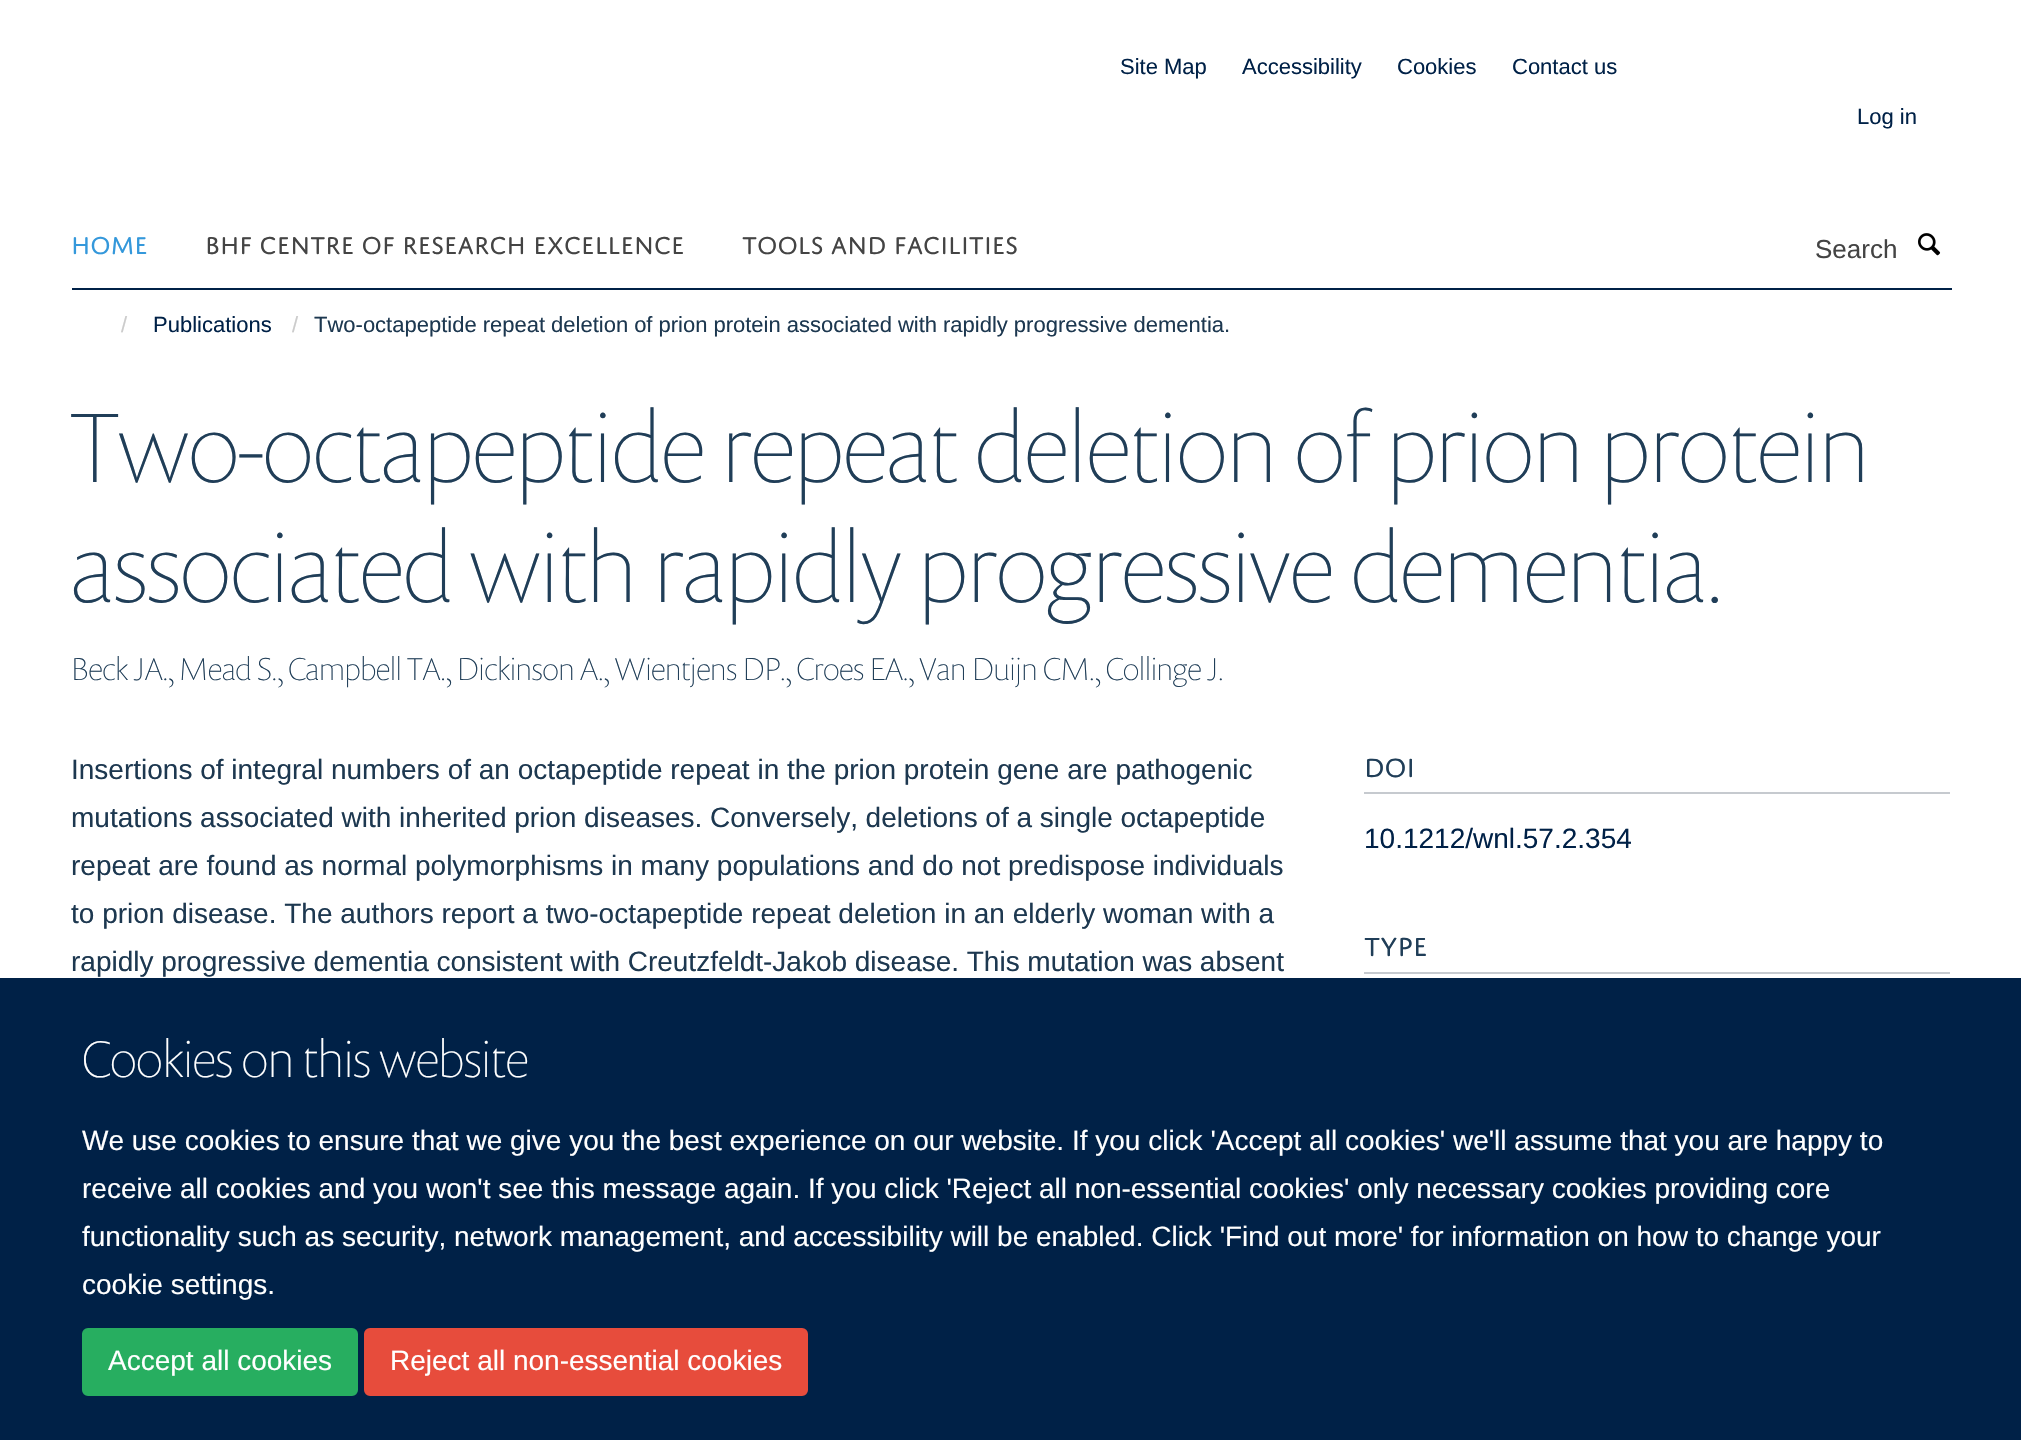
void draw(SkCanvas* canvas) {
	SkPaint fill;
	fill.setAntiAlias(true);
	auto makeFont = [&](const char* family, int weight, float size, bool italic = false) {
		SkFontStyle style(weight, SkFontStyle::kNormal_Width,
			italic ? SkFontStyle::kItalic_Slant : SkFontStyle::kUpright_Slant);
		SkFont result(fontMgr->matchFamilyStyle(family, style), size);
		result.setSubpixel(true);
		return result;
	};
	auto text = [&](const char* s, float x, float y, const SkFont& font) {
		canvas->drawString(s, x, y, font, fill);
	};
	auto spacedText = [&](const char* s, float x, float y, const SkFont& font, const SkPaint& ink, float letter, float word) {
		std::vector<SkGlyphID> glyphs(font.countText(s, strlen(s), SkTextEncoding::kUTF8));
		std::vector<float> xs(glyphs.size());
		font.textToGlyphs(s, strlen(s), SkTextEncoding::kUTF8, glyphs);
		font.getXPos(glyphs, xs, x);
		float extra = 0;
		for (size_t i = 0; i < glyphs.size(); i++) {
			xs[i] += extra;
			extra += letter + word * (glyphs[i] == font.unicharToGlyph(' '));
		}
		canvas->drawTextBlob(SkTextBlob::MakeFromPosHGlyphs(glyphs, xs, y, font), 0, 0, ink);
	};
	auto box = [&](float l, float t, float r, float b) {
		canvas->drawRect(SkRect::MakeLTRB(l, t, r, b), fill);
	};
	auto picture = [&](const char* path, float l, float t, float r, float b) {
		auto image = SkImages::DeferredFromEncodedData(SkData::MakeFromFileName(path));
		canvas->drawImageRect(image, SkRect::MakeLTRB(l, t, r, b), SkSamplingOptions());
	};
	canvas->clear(0xFFFFFFFF);
	fill.setColor(0xFF002147);
	box(72, 288, 1952, 290);
	picture("image0.png", 1918, 233, 1941, 256);
	fill.setColor(0xFFC6CACF);
	box(1364, 792, 1950, 794);
	box(1364, 972, 1950, 974);
	fill.setColor(0xFF002147);
	box(0, 978, 2021, 1440);
	fill.setColor(0xFF27AE60);
	canvas->drawRoundRect(SkRect::MakeLTRB(83, 1329, 357, 1395), 5, 5, fill);
	fill.setStyle(SkPaint::kStroke_Style);
	fill.setStrokeWidth(2);
	canvas->drawRoundRect(SkRect::MakeLTRB(83, 1329, 357, 1395), 5, 5, fill);
	fill.setStyle(SkPaint::kFill_Style);
	fill.setColor(0xFFE74C3C);
	canvas->drawRoundRect(SkRect::MakeLTRB(365, 1329, 807, 1395), 5, 5, fill);
	fill.setStyle(SkPaint::kStroke_Style);
	canvas->drawRoundRect(SkRect::MakeLTRB(365, 1329, 807, 1395), 5, 5, fill);
	auto font1 = makeFont("Liberation Sans", 400, 22);
	fill.setStyle(SkPaint::kFill_Style);
	fill.setColor(0xFF002147);
	text("Site Map", 1120, 74, font1);
	text("Accessibility", 1242, 74, font1);
	text("Cookies", 1397, 74, font1);
	text("Contact us", 1512, 74, font1);
	text("Log in", 1857, 124, font1);
	auto font2 = makeFont("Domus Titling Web", 400, 26);
	fill.setColor(0xFF3498DB);
	text("HOME", 71, 254, font2);
	fill.setColor(0xFF444444);
	text("BHF CENTRE OF RESEARCH EXCELLENCE", 205, 254, font2);
	text("TOOLS AND FACILITIES", 742, 254, font2);
	auto font3 = makeFont("Liberation Sans", 400, 26);
	text("Search", 1815, 258, font3);
	fill.setColor(0xFFCCCCCC);
	text("/", 121, 332, font1);
	fill.setColor(0xFF002147);
	text("Publications", 153, 332, font1);
	fill.setColor(0xFFCCCCCC);
	text("/", 292, 332, font1);
	fill.setColor(0xFF1D3850);
	spacedText("Two-octapeptide repeat deletion of prion protein associated with rapidly progressive dementia.", 314, 332, font1, fill, 0, -0.1f);
	auto font4 = makeFont("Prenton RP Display", 100, 100);
	fill.setColor(0xFF203E58);
	text("Two-octapeptide repeat deletion of prion protein", 71, 482, font4);
	text("associated with rapidly progressive dementia.", 71, 602, font4);
	auto font5 = makeFont("Prenton RP Display", 100, 32);
	text("Beck JA., Mead S., Campbell TA., Dickinson A., Wientjens DP., Croes EA., Van Duijn CM., Collinge J.", 71, 680, font5);
	auto font6 = makeFont("Liberation Sans", 400, 28);
	fill.setColor(0xFF1D3850);
	text("Insertions of integral numbers of an octapeptide repeat in the prion protein gene are pathogenic", 71, 779, font6);
	spacedText("mutations associated with inherited prion diseases. Conversely, deletions of a single octapeptide", 71, 827, font6, fill, 0, -0.1f);
	text("repeat are found as normal polymorphisms in many populations and do not predispose individuals", 71, 875, font6);
	text("to prion disease. The authors report a two-octapeptide repeat deletion in an elderly woman with a", 71, 923, font6);
	spacedText("rapidly progressive dementia consistent with Creutzfeldt-Jakob disease. This mutation was absent", 71, 971, font6, fill, 0, -0.1f);
	auto font7 = makeFont("Domus Titling Web", 400, 28);
	fill.setColor(0xFF203E58);
	text("DOI", 1364, 777, font7);
	fill.setColor(0xFF002147);
	text("10.1212/wnl.57.2.354", 1364, 848, font6);
	fill.setColor(0xFF203E58);
	text("TYPE", 1364, 956, font7);
	auto font8 = makeFont("Prenton RP Display", 100, 52);
	fill.setColor(0xFFFFFFFF);
	text("Cookies on this website", 82, 1077, font8);
	text("We use cookies to ensure that we give you the best experience on our website. If you click 'Accept all cookies' we'll assume that you are happy to", 82, 1150, font6);
	text("receive all cookies and you won't see this message again. If you click 'Reject all non-essential cookies' only necessary cookies providing core", 82, 1198, font6);
	text("functionality such as security, network management, and accessibility will be enabled. Click 'Find out more' for information on how to change your", 82, 1246, font6);
	text("cookie settings.", 82, 1294, font6);
	text("Accept all cookies", 108, 1370, font6);
	text("Reject all non-essential cookies", 390, 1370, font6);
}
